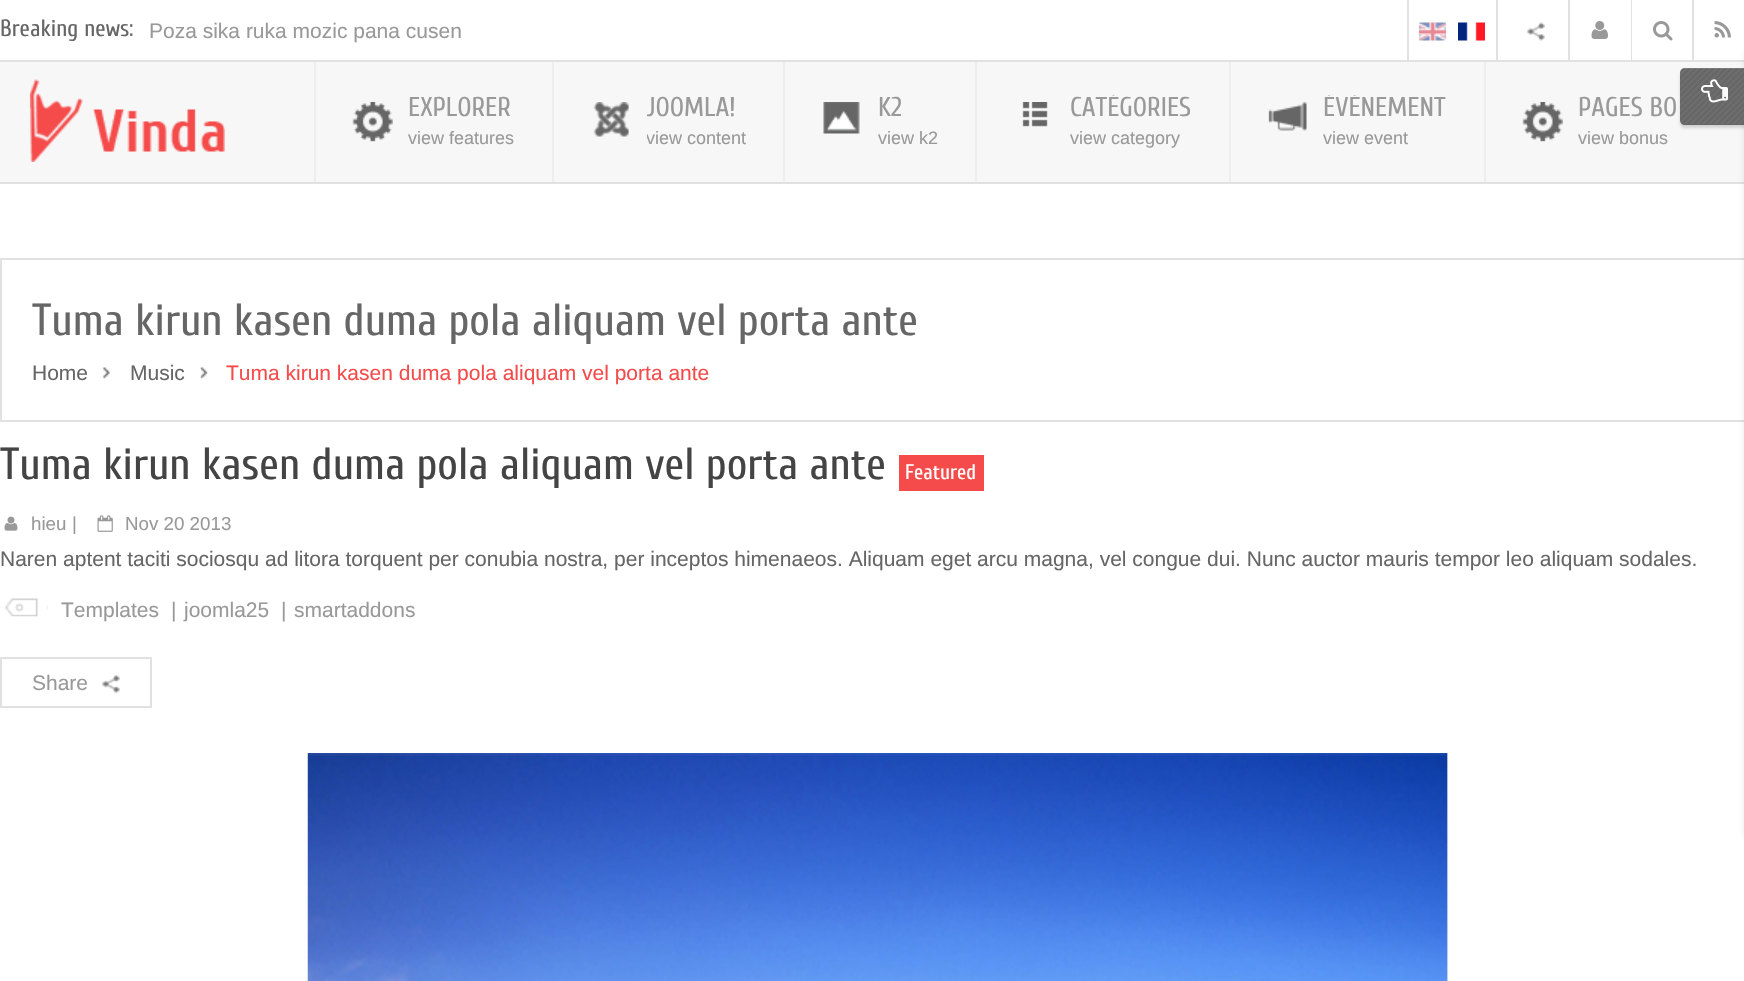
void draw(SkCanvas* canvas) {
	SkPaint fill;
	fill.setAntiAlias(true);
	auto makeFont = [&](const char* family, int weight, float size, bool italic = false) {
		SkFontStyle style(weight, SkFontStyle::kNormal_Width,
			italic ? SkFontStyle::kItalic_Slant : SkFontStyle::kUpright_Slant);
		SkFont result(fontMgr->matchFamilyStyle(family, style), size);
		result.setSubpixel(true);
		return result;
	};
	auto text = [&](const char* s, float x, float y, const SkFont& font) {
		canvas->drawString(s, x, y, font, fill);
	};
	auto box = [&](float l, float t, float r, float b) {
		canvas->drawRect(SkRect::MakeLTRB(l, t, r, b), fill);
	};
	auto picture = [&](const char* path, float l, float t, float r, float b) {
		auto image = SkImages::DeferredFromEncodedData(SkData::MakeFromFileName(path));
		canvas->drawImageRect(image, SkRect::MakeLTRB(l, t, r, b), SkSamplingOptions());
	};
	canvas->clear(0xFFFFFFFF);
	fill.setColor(0xFFE1E1E1);
	box(1407, 0, 1409, 60);
	picture("image0.png", 1419, 22, 1446, 41);
	picture("image1.png", 1458, 22, 1485, 41);
	box(1496, 0, 1498, 60);
	picture("image2.png", 1527, 22, 1545, 41);
	box(1568, 0, 1570, 60);
	picture("image3.png", 1591, 21, 1608, 39);
	box(1631, 0, 1632, 60);
	picture("image4.png", 1653, 21, 1673, 41);
	box(1692, 0, 1694, 60);
	picture("image5.png", 1714, 21, 1731, 38);
	fill.setColor(0xFFF7F7F7);
	box(0, 62, 1744, 182);
	fill.setColor(0xFFE1E1E1);
	box(0, 60, 1744, 62);
	box(0, 182, 1744, 184);
	picture("image6.png", 30, 79, 225, 162);
	fill.setColor(0xFFEEEEEE);
	box(314, 62, 316, 182);
	picture("image7.png", 352, 102, 393, 142);
	box(552, 62, 554, 182);
	picture("image8.png", 593, 102, 629, 137);
	box(783, 62, 785, 182);
	picture("image9.png", 823, 102, 860, 134);
	box(975, 62, 977, 182);
	picture("image10.png", 1022, 102, 1048, 127);
	box(1229, 62, 1231, 182);
	picture("image11.png", 1268, 102, 1307, 131);
	box(1484, 62, 1486, 182);
	picture("image12.png", 1522, 102, 1563, 142);
	fill.setStyle(SkPaint::kStroke_Style);
	fill.setStrokeWidth(2);
	fill.setColor(0xFFE1E1E1);
	canvas->drawRect(SkRect::MakeLTRB(1, 259, 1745, 421), fill);
	fill.setStyle(SkPaint::kFill_Style);
	fill.setColor(0x66000000);
	fill.setMaskFilter(SkMaskFilter::MakeBlur(kNormal_SkBlurStyle, 4.5f));
	canvas->drawRoundRect(SkRect::MakeLTRB(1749, 53, 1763, 837), 5, 5, fill);
	fill.setMaskFilter(nullptr);
	fill.setColor(0x26000000);
	fill.setMaskFilter(SkMaskFilter::MakeBlur(kNormal_SkBlurStyle, 1.5f));
	canvas->drawRoundRect(SkRect::MakeLTRB(1680, 71, 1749, 128), 5, 5, fill);
	fill.setMaskFilter(nullptr);
	fill.setColor(0xFF666666);
	canvas->drawPath(SkPathBuilder().moveTo(1685, 68).lineTo(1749, 68).lineTo(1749, 125).lineTo(1685, 125).cubicTo(1682, 125, 1680, 123, 1680, 120).lineTo(1680, 73).cubicTo(1680, 70, 1682, 68, 1685, 68).close().detach(), fill);
	picture("image13.png", 1680, 68, 1744, 124);
	fill.setColor(0x1AFFFFFF);
	canvas->drawPath(SkPathBuilder().moveTo(1684, 69).lineTo(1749, 69).lineTo(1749, 68).lineTo(1685, 68).cubicTo(1682, 68, 1680, 70, 1680, 73).lineTo(1680, 74).cubicTo(1680, 71, 1682, 69, 1684, 69).close().detach(), fill);
	picture("image14.png", 1701, 79, 1728, 103);
	picture("image15.png", 102, 367, 110, 379);
	picture("image16.png", 199, 367, 208, 379);
	fill.setColor(0xFFF54B4B);
	box(899, 455, 984, 491);
	picture("image17.png", 4, 516, 18, 531);
	picture("image18.png", 97, 515, 113, 532);
	picture("image19.png", 4, 598, 48, 617);
	fill.setStyle(SkPaint::kStroke_Style);
	fill.setColor(0xFFE1E1E1);
	canvas->drawRect(SkRect::MakeLTRB(1, 658, 151, 707), fill);
	picture("image20.png", 102, 675, 120, 694);
	fill.setStyle(SkPaint::kFill_Style);
	fill.setColor(0xFFE6E6E6);
	box(1447, 753, 1448, 981);
	picture("image21.png", 307, 753, 1448, 981);
	auto font1 = makeFont("Cuprum", 400, 23.5f);
	fill.setColor(0xFF666666);
	text("Breaking news:", 0, 36, font1);
	auto font2 = makeFont("Liberation Sans", 400, 21);
	fill.setColor(0xFF999999);
	text("Poza sika ruka mozic pana cusen", 149, 38, font2);
	auto font3 = makeFont("Cuprum", 400, 27);
	text("EXPLORER", 408, 116, font3);
	auto font4 = makeFont("Liberation Sans", 400, 18);
	text("view features", 408, 144, font4);
	canvas->save();
	canvas->clipRect(SkRect::MakeLTRB(647, 95, 746, 149));
	text("JOOMLA!", 646, 116, font3);
	text("view content", 646, 144, font4);
	canvas->restore();
	text("K2", 878, 116, font3);
	text("view k2", 878, 144, font4);
	canvas->save();
	canvas->clipRect(SkRect::MakeLTRB(1070, 95, 1191, 149));
	text("CATÉGORIES", 1070, 116, font3);
	canvas->restore();
	text("view category", 1070, 144, font4);
	canvas->save();
	canvas->clipRect(SkRect::MakeLTRB(1323, 95, 1446, 149));
	text("ÉVÉNEMENT", 1323, 116, font3);
	canvas->restore();
	text("view event", 1323, 144, font4);
	text("PAGES BO", 1578, 116, font3);
	text("view bonus", 1578, 144, font4);
	auto font5 = makeFont("Cuprum", 400, 44.9f);
	fill.setColor(0xFF666666);
	text("Tuma kirun kasen duma pola aliquam vel porta ante", 32, 335, font5);
	text("Home", 32, 380, font2);
	text("Music", 130, 380, font2);
	fill.setColor(0xFFF54B4B);
	text("Tuma kirun kasen duma pola aliquam vel porta ante", 226, 380, font2);
	fill.setColor(0xFF444444);
	text("Tuma kirun kasen duma pola aliquam vel porta ante", 0, 479, font5);
	auto font6 = makeFont("Cuprum", 400, 21);
	fill.setColor(0xFFFFFFFF);
	text("Featured", 905, 479, font6);
	auto font7 = makeFont("Liberation Sans", 400, 18.75f);
	fill.setColor(0xFF999999);
	text("hieu", 31, 530, font7);
	text("|", 72, 530, font7);
	text("Nov 20 2013", 125, 530, font7);
	fill.setColor(0xFF666666);
	text("Naren aptent taciti sociosqu ad litora torquent per conubia nostra, per inceptos himenaeos. Aliquam eget arcu magna, vel congue dui. Nunc auctor mauris tempor leo aliquam sodales.", 0, 566, font2);
	fill.setColor(0xFF999999);
	text("Templates", 61, 617, font2);
	text("|", 171, 617, font2);
	text("joomla25", 184, 617, font2);
	text("|", 281, 617, font2);
	text("smartaddons", 294, 617, font2);
	text("Share", 32, 690, font2);
}
